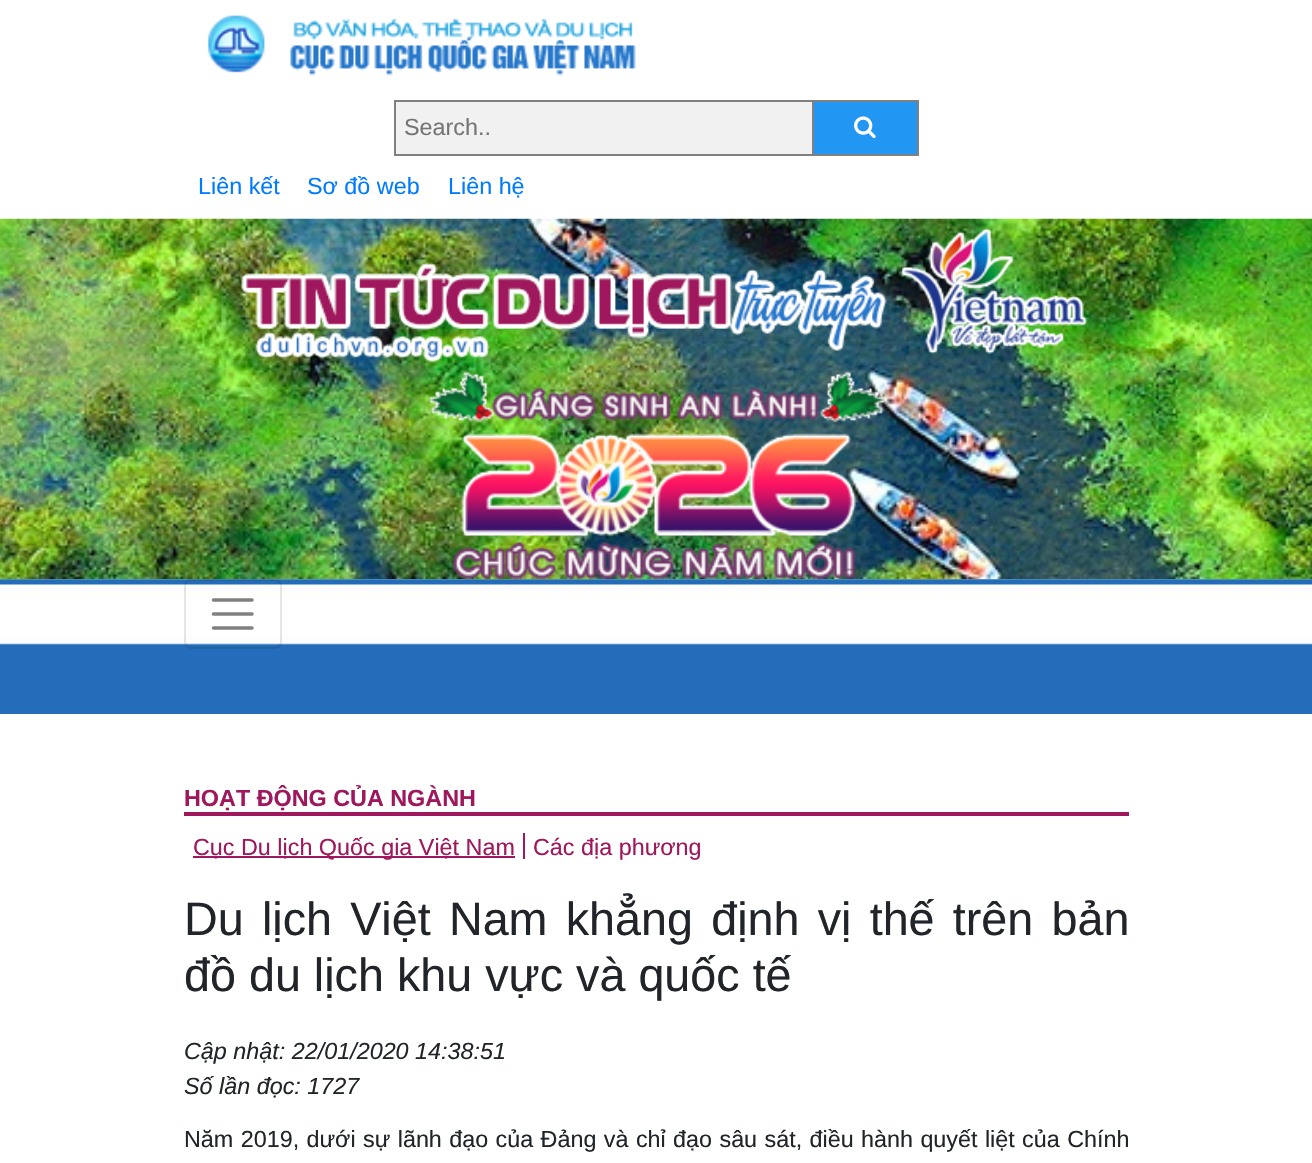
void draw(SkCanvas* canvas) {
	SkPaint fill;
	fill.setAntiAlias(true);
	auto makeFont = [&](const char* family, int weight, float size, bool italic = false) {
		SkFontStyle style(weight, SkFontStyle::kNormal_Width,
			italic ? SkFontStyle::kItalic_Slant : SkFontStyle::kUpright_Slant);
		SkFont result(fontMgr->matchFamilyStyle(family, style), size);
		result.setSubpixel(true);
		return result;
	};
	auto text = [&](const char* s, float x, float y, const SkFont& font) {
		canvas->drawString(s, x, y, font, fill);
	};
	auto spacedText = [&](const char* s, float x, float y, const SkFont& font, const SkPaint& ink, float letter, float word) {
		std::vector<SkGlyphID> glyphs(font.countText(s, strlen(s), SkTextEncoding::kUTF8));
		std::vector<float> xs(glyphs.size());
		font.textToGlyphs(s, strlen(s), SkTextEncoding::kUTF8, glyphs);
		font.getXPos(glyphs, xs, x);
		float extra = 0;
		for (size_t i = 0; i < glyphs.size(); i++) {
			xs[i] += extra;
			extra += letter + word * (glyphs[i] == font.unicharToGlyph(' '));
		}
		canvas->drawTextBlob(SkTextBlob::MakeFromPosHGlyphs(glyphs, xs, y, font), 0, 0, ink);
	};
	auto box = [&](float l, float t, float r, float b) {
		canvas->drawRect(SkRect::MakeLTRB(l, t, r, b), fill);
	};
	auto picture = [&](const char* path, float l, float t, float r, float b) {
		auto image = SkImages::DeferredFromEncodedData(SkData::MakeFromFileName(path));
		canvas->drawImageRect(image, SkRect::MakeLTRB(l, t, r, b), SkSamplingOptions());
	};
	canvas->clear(0xFFFFFFFF);
	picture("image0.png", 207, 15, 636, 76);
	fill.setColor(0xFFF1F1F1);
	canvas->drawRect(SkRect::MakeLTRB(395, 101, 813, 155), fill);
	fill.setStyle(SkPaint::kStroke_Style);
	fill.setStrokeWidth(2);
	fill.setColor(0xFF808080);
	canvas->drawRect(SkRect::MakeLTRB(395, 101, 813, 155), fill);
	fill.setStyle(SkPaint::kFill_Style);
	fill.setColor(0xFF2196F3);
	box(814, 102, 917, 154);
	fill.setColor(0xFF808080);
	box(814, 100, 919, 102);
	box(917, 100, 919, 156);
	box(814, 154, 919, 156);
	picture("image1.png", 854, 116, 876, 138);
	picture("image2.png", 0, 218, 1312, 580);
	picture("image3.png", 241, 228, 1088, 362);
	picture("image5.png", 0, 579, 1312, 714);
	picture("image4.png", 428, 371, 885, 580);
	fill.setStyle(SkPaint::kStroke_Style);
	fill.setColor(0x1A000000);
	canvas->drawRoundRect(SkRect::MakeLTRB(185, 580, 281, 648), 6, 6, fill);
	fill.setStrokeWidth(3.5f);
	fill.setStrokeCap(SkPaint::kRound_Cap);
	fill.setColor(0xFF808080);
	canvas->drawPath(SkPathBuilder().moveTo(213.5f, 600).lineTo(252, 600).moveTo(213.5f, 614).lineTo(252, 614).moveTo(213.5f, 628).lineTo(252, 628).detach(), fill);
	fill.setStyle(SkPaint::kFill_Style);
	fill.setColor(0xFF9F175C);
	box(184, 812, 1129, 816);
	box(193, 856, 515, 858);
	box(523, 833, 525, 859);
	auto font1 = makeFont("Liberation Sans", 400, 23.35f);
	fill.setColor(0xFF757575);
	text("Search..", 404, 135, font1);
	fill.setColor(0xFF007BFF);
	text("Liên kết", 198, 194, font1);
	text("Sơ đồ web", 307, 194, font1);
	text("Liên hệ", 448, 194, font1);
	auto font2 = makeFont("Liberation Sans", 700, 23.35f);
	fill.setColor(0xFF9F175C);
	text("HOẠT ĐỘNG CỦA NGÀNH", 184, 806, font2);
	text("Cục Du lịch Quốc gia Việt Nam", 193, 855, font1);
	text("Các địa phương", 533, 855, font1);
	auto font3 = makeFont("Liberation Sans", 400, 46.7f);
	fill.setColor(0xFF212529);
	spacedText("Du lịch Việt Nam khẳng định vị thế trên bản", 184, 935, font3, fill, 0, 5.25f);
	text("đồ du lịch khu vực và quốc tế", 184, 991, font3);
	auto font4 = makeFont("Liberation Sans", 400, 23.35f, true);
	text("Cập nhật: 22/01/2020 14:38:51", 184, 1059, font4);
	text("Số lần đọc: 1727", 184, 1094, font4);
	spacedText("Năm 2019, dưới sự lãnh đạo của Đảng và chỉ đạo sâu sát, điều hành quyết liệt của Chính", 184, 1147, font1, fill, 0, 0.9f);
}
